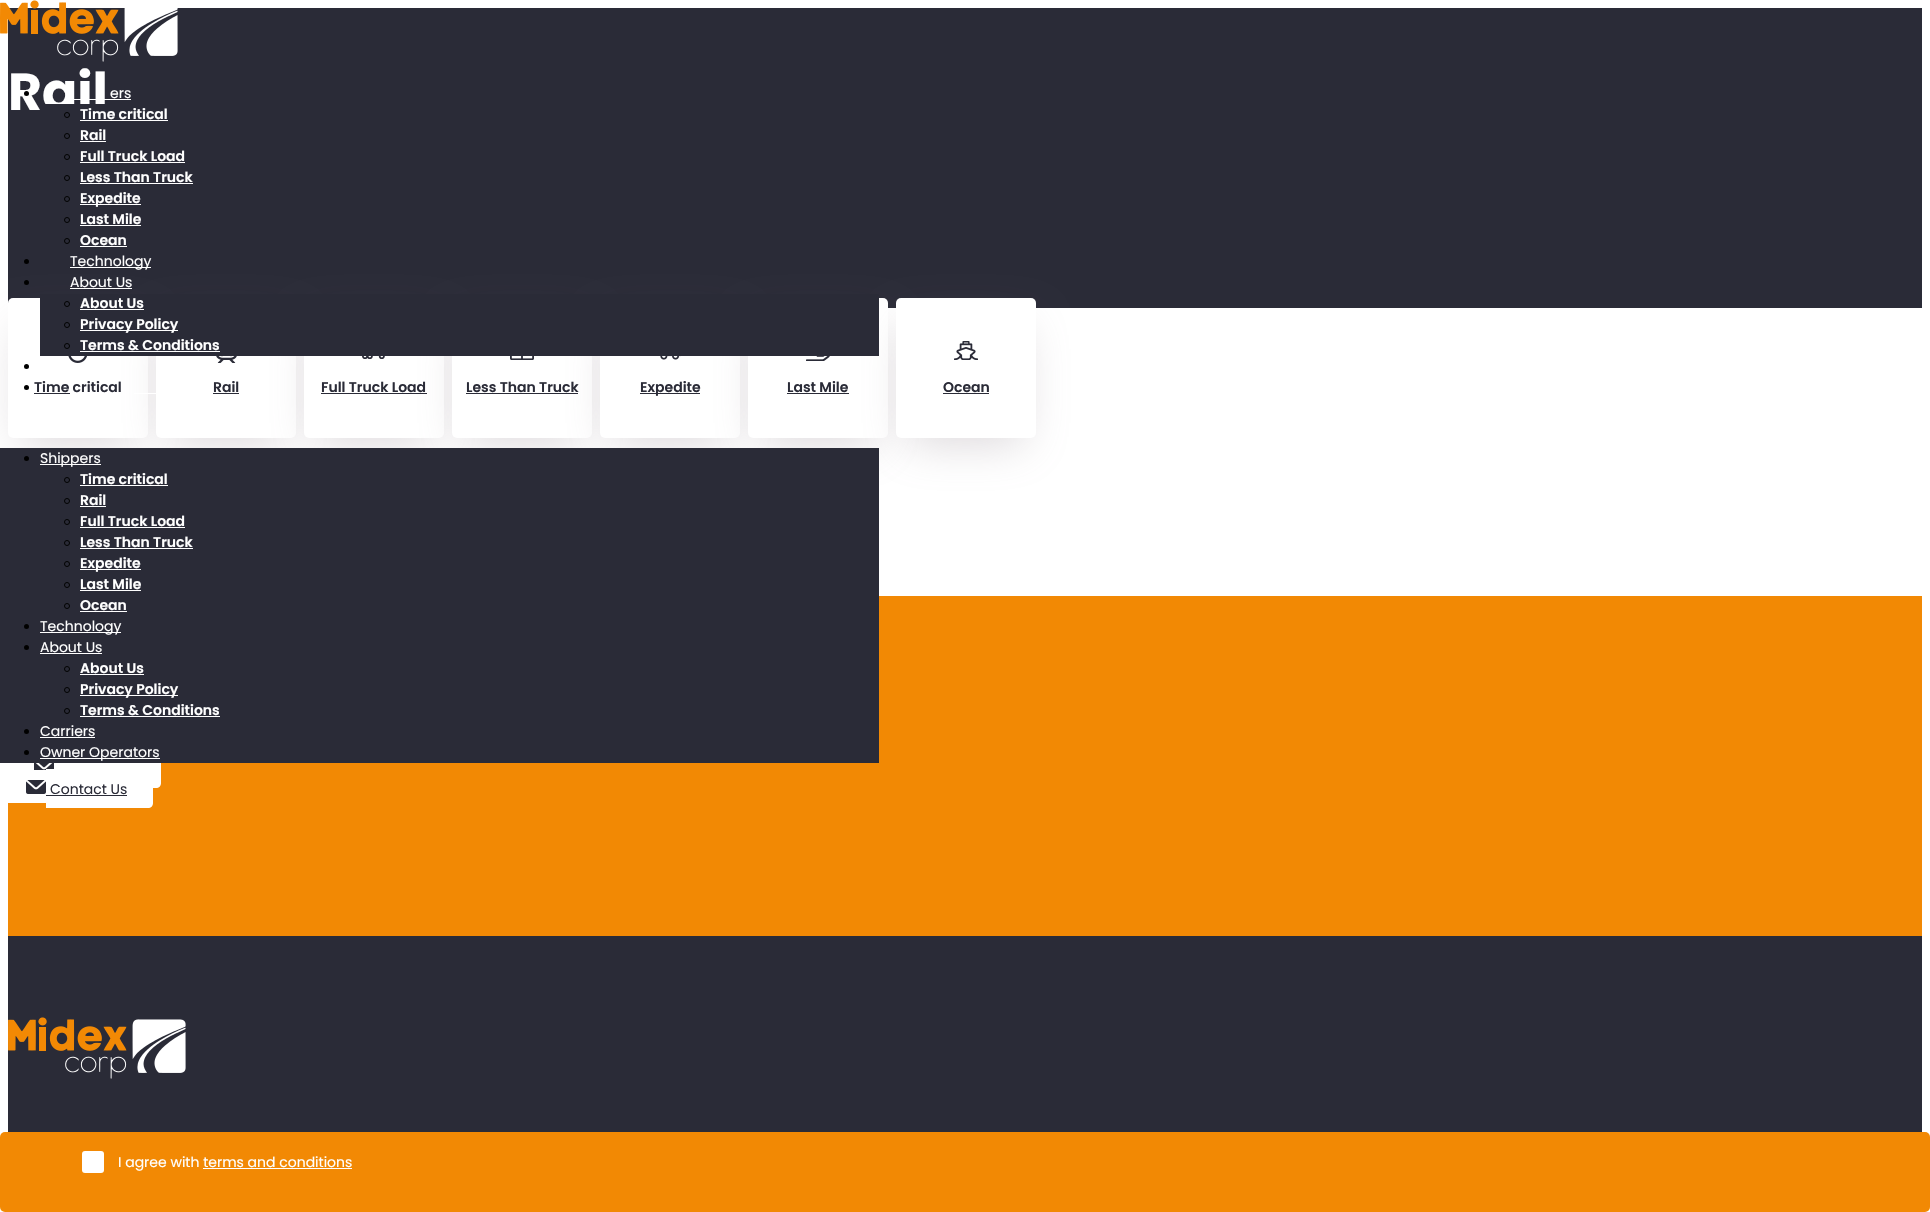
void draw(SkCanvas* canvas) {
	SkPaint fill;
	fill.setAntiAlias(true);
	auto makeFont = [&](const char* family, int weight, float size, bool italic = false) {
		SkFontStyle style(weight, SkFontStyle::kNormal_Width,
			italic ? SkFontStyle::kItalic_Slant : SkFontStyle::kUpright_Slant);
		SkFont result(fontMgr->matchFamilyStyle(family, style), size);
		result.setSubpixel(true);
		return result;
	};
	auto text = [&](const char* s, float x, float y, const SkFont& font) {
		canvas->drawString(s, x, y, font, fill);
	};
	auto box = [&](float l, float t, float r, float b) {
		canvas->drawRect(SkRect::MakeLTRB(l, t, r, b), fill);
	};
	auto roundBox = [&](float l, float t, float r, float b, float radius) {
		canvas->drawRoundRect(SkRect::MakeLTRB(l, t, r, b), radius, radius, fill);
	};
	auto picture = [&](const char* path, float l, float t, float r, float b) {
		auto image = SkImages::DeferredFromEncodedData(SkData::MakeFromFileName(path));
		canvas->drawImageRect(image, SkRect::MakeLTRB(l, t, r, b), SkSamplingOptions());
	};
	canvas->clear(0xFFFFFFFF);
	fill.setColor(0xFF2A2B37);
	box(8, 8, 1922, 308);
	fill.setColor(0x599A8F97);
	fill.setMaskFilter(SkMaskFilter::MakeBlur(kNormal_SkBlurStyle, 22.5f));
	canvas->drawRect(SkRect::MakeLTRB(20, 328, 136, 444), fill);
	fill.setMaskFilter(nullptr);
	fill.setColor(0xFFFFFFFF);
	roundBox(8, 298, 148, 438, 5);
	picture("image0.png", 68, 356, 87, 363);
	fill.setColor(0xFF2A2B37);
	box(34, 393, 70, 394);
	fill.setColor(0x599A8F97);
	fill.setMaskFilter(SkMaskFilter::MakeBlur(kNormal_SkBlurStyle, 22.5f));
	canvas->drawRect(SkRect::MakeLTRB(168, 328, 284, 444), fill);
	fill.setMaskFilter(nullptr);
	fill.setColor(0xFFFFFFFF);
	roundBox(156, 298, 296, 438, 5);
	picture("image1.png", 216, 356, 237, 363);
	fill.setColor(0xFF2A2B37);
	box(213, 393, 239, 394);
	fill.setColor(0x599A8F97);
	fill.setMaskFilter(SkMaskFilter::MakeBlur(kNormal_SkBlurStyle, 22.5f));
	canvas->drawRect(SkRect::MakeLTRB(316, 328, 432, 444), fill);
	fill.setMaskFilter(nullptr);
	fill.setColor(0xFFFFFFFF);
	roundBox(304, 298, 444, 438, 5);
	picture("image2.png", 362, 356, 385, 359);
	fill.setColor(0xFF2A2B37);
	box(321, 393, 427, 394);
	fill.setColor(0x599A8F97);
	fill.setMaskFilter(SkMaskFilter::MakeBlur(kNormal_SkBlurStyle, 22.5f));
	canvas->drawRect(SkRect::MakeLTRB(464, 328, 580, 444), fill);
	fill.setMaskFilter(nullptr);
	fill.setColor(0xFFFFFFFF);
	roundBox(452, 298, 592, 438, 5);
	picture("image3.png", 510, 356, 534, 360);
	fill.setColor(0xFF2A2B37);
	box(466, 393, 578, 394);
	fill.setColor(0x599A8F97);
	fill.setMaskFilter(SkMaskFilter::MakeBlur(kNormal_SkBlurStyle, 22.5f));
	canvas->drawRect(SkRect::MakeLTRB(612, 328, 728, 444), fill);
	fill.setMaskFilter(nullptr);
	fill.setColor(0xFFFFFFFF);
	roundBox(600, 298, 740, 438, 5);
	picture("image4.png", 660, 356, 681, 360);
	fill.setColor(0xFF2A2B37);
	box(640, 393, 700, 394);
	fill.setColor(0x599A8F97);
	fill.setMaskFilter(SkMaskFilter::MakeBlur(kNormal_SkBlurStyle, 22.5f));
	canvas->drawRect(SkRect::MakeLTRB(760, 328, 876, 444), fill);
	fill.setMaskFilter(nullptr);
	fill.setColor(0xFFFFFFFF);
	roundBox(748, 298, 888, 438, 5);
	picture("image5.png", 806, 356, 830, 361);
	fill.setColor(0xFF2A2B37);
	box(787, 393, 849, 394);
	fill.setColor(0x599A8F97);
	fill.setMaskFilter(SkMaskFilter::MakeBlur(kNormal_SkBlurStyle, 22.5f));
	canvas->drawRect(SkRect::MakeLTRB(908, 328, 1024, 444), fill);
	fill.setMaskFilter(nullptr);
	fill.setColor(0xFFFFFFFF);
	roundBox(896, 298, 1036, 438, 5);
	picture("image6.png", 954, 341, 978, 360);
	fill.setColor(0xFF2A2B37);
	box(943, 393, 989, 394);
	picture("image7.png", 0, 0, 178, 62);
	fill.setColor(0xFFFFFFFF);
	box(70, 99, 131, 100);
	fill.setStyle(SkPaint::kStroke_Style);
	fill.setStrokeWidth(1);
	fill.setColor(0xFF000000);
	canvas->drawCircle(67, 115, 2.5f, fill);
	fill.setStyle(SkPaint::kFill_Style);
	fill.setColor(0xFFFFFFFF);
	box(80, 120, 168, 121);
	fill.setStyle(SkPaint::kStroke_Style);
	fill.setColor(0xFF000000);
	canvas->drawCircle(67, 136, 2.5f, fill);
	fill.setStyle(SkPaint::kFill_Style);
	fill.setColor(0xFFFFFFFF);
	box(80, 141, 106, 142);
	fill.setStyle(SkPaint::kStroke_Style);
	fill.setColor(0xFF000000);
	canvas->drawCircle(67, 157, 2.5f, fill);
	fill.setStyle(SkPaint::kFill_Style);
	fill.setColor(0xFFFFFFFF);
	box(80, 162, 185, 163);
	fill.setStyle(SkPaint::kStroke_Style);
	fill.setColor(0xFF000000);
	canvas->drawCircle(67, 178, 2.5f, fill);
	fill.setStyle(SkPaint::kFill_Style);
	fill.setColor(0xFFFFFFFF);
	box(80, 183, 193, 184);
	fill.setStyle(SkPaint::kStroke_Style);
	fill.setColor(0xFF000000);
	canvas->drawCircle(67, 199, 2.5f, fill);
	fill.setStyle(SkPaint::kFill_Style);
	fill.setColor(0xFFFFFFFF);
	box(80, 204, 141, 205);
	fill.setStyle(SkPaint::kStroke_Style);
	fill.setColor(0xFF000000);
	canvas->drawCircle(67, 220, 2.5f, fill);
	fill.setStyle(SkPaint::kFill_Style);
	fill.setColor(0xFFFFFFFF);
	box(80, 225, 141, 226);
	fill.setStyle(SkPaint::kStroke_Style);
	fill.setColor(0xFF000000);
	canvas->drawCircle(67, 241, 2.5f, fill);
	fill.setStyle(SkPaint::kFill_Style);
	fill.setColor(0xFFFFFFFF);
	box(80, 246, 127, 247);
	fill.setColor(0xFF000000);
	canvas->drawCircle(26.5f, 261.5f, 2.5f, fill);
	fill.setColor(0xFFFFFFFF);
	box(70, 267, 151, 268);
	fill.setColor(0xFF000000);
	canvas->drawCircle(26.5f, 282.5f, 2.5f, fill);
	fill.setColor(0xFFFFFFFF);
	box(70, 288, 132, 289);
	fill.setColor(0xFF2A2B37);
	box(40, 294, 879, 356);
	fill.setStyle(SkPaint::kStroke_Style);
	fill.setColor(0xFF000000);
	canvas->drawCircle(67, 304, 2.5f, fill);
	fill.setStyle(SkPaint::kFill_Style);
	fill.setColor(0xFFFFFFFF);
	box(80, 309, 144, 310);
	fill.setStyle(SkPaint::kStroke_Style);
	fill.setColor(0xFF000000);
	canvas->drawCircle(67, 325, 2.5f, fill);
	fill.setStyle(SkPaint::kFill_Style);
	fill.setColor(0xFFFFFFFF);
	box(80, 330, 178, 331);
	fill.setStyle(SkPaint::kStroke_Style);
	fill.setColor(0xFF000000);
	canvas->drawCircle(67, 346, 2.5f, fill);
	fill.setStyle(SkPaint::kFill_Style);
	fill.setColor(0xFFFFFFFF);
	box(80, 351, 220, 352);
	fill.setColor(0xFF000000);
	canvas->drawCircle(26.5f, 366.5f, 2.5f, fill);
	canvas->drawCircle(26.5f, 387.5f, 2.5f, fill);
	fill.setColor(0xFFFFFFFF);
	box(134, 393, 156, 394);
	fill.setColor(0xFFF28904);
	box(8, 596, 1922, 936);
	fill.setColor(0xFFFFFFFF);
	canvas->drawPath(SkPathBuilder().moveTo(58, 749).lineTo(156, 749).cubicTo(159, 749, 161, 751, 161, 754).lineTo(161, 783).cubicTo(161, 786, 159, 788, 156, 788).lineTo(58, 788).close().detach(), fill);
	fill.setColor(0xFF2A2B37);
	box(0, 448, 879, 763);
	fill.setColor(0xFF000000);
	canvas->drawCircle(26.5f, 458.5f, 2.5f, fill);
	fill.setColor(0xFFFFFFFF);
	box(40, 464, 101, 465);
	fill.setStyle(SkPaint::kStroke_Style);
	fill.setColor(0xFF000000);
	canvas->drawCircle(67, 480, 2.5f, fill);
	fill.setStyle(SkPaint::kFill_Style);
	fill.setColor(0xFFFFFFFF);
	box(80, 485, 168, 486);
	fill.setStyle(SkPaint::kStroke_Style);
	fill.setColor(0xFF000000);
	canvas->drawCircle(67, 501, 2.5f, fill);
	fill.setStyle(SkPaint::kFill_Style);
	fill.setColor(0xFFFFFFFF);
	box(80, 506, 106, 507);
	fill.setStyle(SkPaint::kStroke_Style);
	fill.setColor(0xFF000000);
	canvas->drawCircle(67, 522, 2.5f, fill);
	fill.setStyle(SkPaint::kFill_Style);
	fill.setColor(0xFFFFFFFF);
	box(80, 527, 185, 528);
	fill.setStyle(SkPaint::kStroke_Style);
	fill.setColor(0xFF000000);
	canvas->drawCircle(67, 543, 2.5f, fill);
	fill.setStyle(SkPaint::kFill_Style);
	fill.setColor(0xFFFFFFFF);
	box(80, 548, 193, 549);
	fill.setStyle(SkPaint::kStroke_Style);
	fill.setColor(0xFF000000);
	canvas->drawCircle(67, 564, 2.5f, fill);
	fill.setStyle(SkPaint::kFill_Style);
	fill.setColor(0xFFFFFFFF);
	box(80, 569, 141, 570);
	fill.setStyle(SkPaint::kStroke_Style);
	fill.setColor(0xFF000000);
	canvas->drawCircle(67, 585, 2.5f, fill);
	fill.setStyle(SkPaint::kFill_Style);
	fill.setColor(0xFFFFFFFF);
	box(80, 590, 141, 591);
	fill.setStyle(SkPaint::kStroke_Style);
	fill.setColor(0xFF000000);
	canvas->drawCircle(67, 606, 2.5f, fill);
	fill.setStyle(SkPaint::kFill_Style);
	fill.setColor(0xFFFFFFFF);
	box(80, 611, 127, 612);
	fill.setColor(0xFF000000);
	canvas->drawCircle(26.5f, 626.5f, 2.5f, fill);
	fill.setColor(0xFFFFFFFF);
	box(40, 632, 121, 633);
	fill.setColor(0xFF000000);
	canvas->drawCircle(26.5f, 647.5f, 2.5f, fill);
	fill.setColor(0xFFFFFFFF);
	box(40, 653, 102, 654);
	fill.setStyle(SkPaint::kStroke_Style);
	fill.setColor(0xFF000000);
	canvas->drawCircle(67, 669, 2.5f, fill);
	fill.setStyle(SkPaint::kFill_Style);
	fill.setColor(0xFFFFFFFF);
	box(80, 674, 144, 675);
	fill.setStyle(SkPaint::kStroke_Style);
	fill.setColor(0xFF000000);
	canvas->drawCircle(67, 690, 2.5f, fill);
	fill.setStyle(SkPaint::kFill_Style);
	fill.setColor(0xFFFFFFFF);
	box(80, 695, 178, 696);
	fill.setStyle(SkPaint::kStroke_Style);
	fill.setColor(0xFF000000);
	canvas->drawCircle(67, 711, 2.5f, fill);
	fill.setStyle(SkPaint::kFill_Style);
	fill.setColor(0xFFFFFFFF);
	box(80, 716, 220, 717);
	fill.setColor(0xFF000000);
	canvas->drawCircle(26.5f, 731.5f, 2.5f, fill);
	fill.setColor(0xFFFFFFFF);
	box(40, 737, 95, 738);
	fill.setColor(0xFF000000);
	canvas->drawCircle(26.5f, 752.5f, 2.5f, fill);
	fill.setColor(0xFFFFFFFF);
	box(40, 758, 160, 759);
	canvas->drawPath(SkPathBuilder().moveTo(5, 770).lineTo(46, 770).lineTo(46, 803).lineTo(5, 803).cubicTo(2, 803, 0, 801, 0, 798).lineTo(0, 775).cubicTo(0, 772, 2, 770, 5, 770).close().detach(), fill);
	picture("image8.png", 26, 780, 46, 794);
	box(8, 763, 53, 770);
	picture("image9.png", 34, 763, 54, 770);
	box(46, 769, 50, 808);
	canvas->drawPath(SkPathBuilder().moveTo(50, 769).lineTo(148, 769).cubicTo(151, 769, 153, 771, 153, 774).lineTo(153, 803).cubicTo(153, 806, 151, 808, 148, 808).lineTo(50, 808).close().detach(), fill);
	fill.setColor(0xFF2A2B37);
	box(46, 795, 127, 796);
	fill.setColor(0xFFFFFFFF);
	box(54, 763, 58, 769);
	fill.setColor(0xFF2A2B37);
	box(8, 936, 1922, 1132);
	picture("image10.png", 8, 1017, 186, 1079);
	fill.setColor(0xFFF28904);
	roundBox(0, 1132, 1930, 1212, 5);
	fill.setColor(0xFFFFFFFF);
	roundBox(82, 1151, 104, 1173, 3);
	box(203, 1168, 352, 1169);
	auto font1 = makeFont("Poppins", 700, 52);
	text("Rail", 8, 110, font1);
	auto font2 = makeFont("Poppins", 600, 14);
	fill.setColor(0xFF2A2B37);
	text("Time critical", 34, 392, font2);
	text("Rail", 213, 392, font2);
	text("Full Truck Load", 321, 392, font2);
	text("Less Than Truck", 466, 392, font2);
	text("Expedite", 640, 392, font2);
	text("Last Mile", 787, 392, font2);
	text("Ocean", 943, 392, font2);
	fill.setColor(0xFF000000);
	canvas->drawCircle(26.5f, 93.5f, 2.5f, fill);
	auto font3 = makeFont("Poppins", 400, 14);
	fill.setColor(0xFFFFFFFF);
	text("ers", 110, 98, font3);
	fill.setColor(0xFF2A2B37);
	box(45, 104, 105, 111);
	fill.setColor(0xFFFFFFFF);
	text("Time critical", 80, 119, font2);
	text("Rail", 80, 140, font2);
	text("Full Truck Load", 80, 161, font2);
	text("Less Than Truck", 80, 182, font2);
	text("Expedite", 80, 203, font2);
	text("Last Mile", 80, 224, font2);
	text("Ocean", 80, 245, font2);
	text("Technology", 70, 266, font3);
	text("About Us", 70, 287, font3);
	text("About Us", 80, 308, font2);
	text("Privacy Policy", 80, 329, font2);
	text("Terms & Conditions", 80, 350, font2);
	text("Shippers", 40, 463, font3);
	text("Time critical", 80, 484, font2);
	text("Rail", 80, 505, font2);
	text("Full Truck Load", 80, 526, font2);
	text("Less Than Truck", 80, 547, font2);
	text("Expedite", 80, 568, font2);
	text("Last Mile", 80, 589, font2);
	text("Ocean", 80, 610, font2);
	text("Technology", 40, 631, font3);
	text("About Us", 40, 652, font3);
	text("About Us", 80, 673, font2);
	text("Privacy Policy", 80, 694, font2);
	text("Terms & Conditions", 80, 715, font2);
	text("Carriers", 40, 736, font3);
	text("Owner Operators", 40, 757, font3);
	fill.setColor(0xFF2A2B37);
	text("Contact Us", 50, 794, font3);
	fill.setColor(0xFFFFFFFF);
	text("I agree with terms and conditions", 118, 1167, font3);
}
